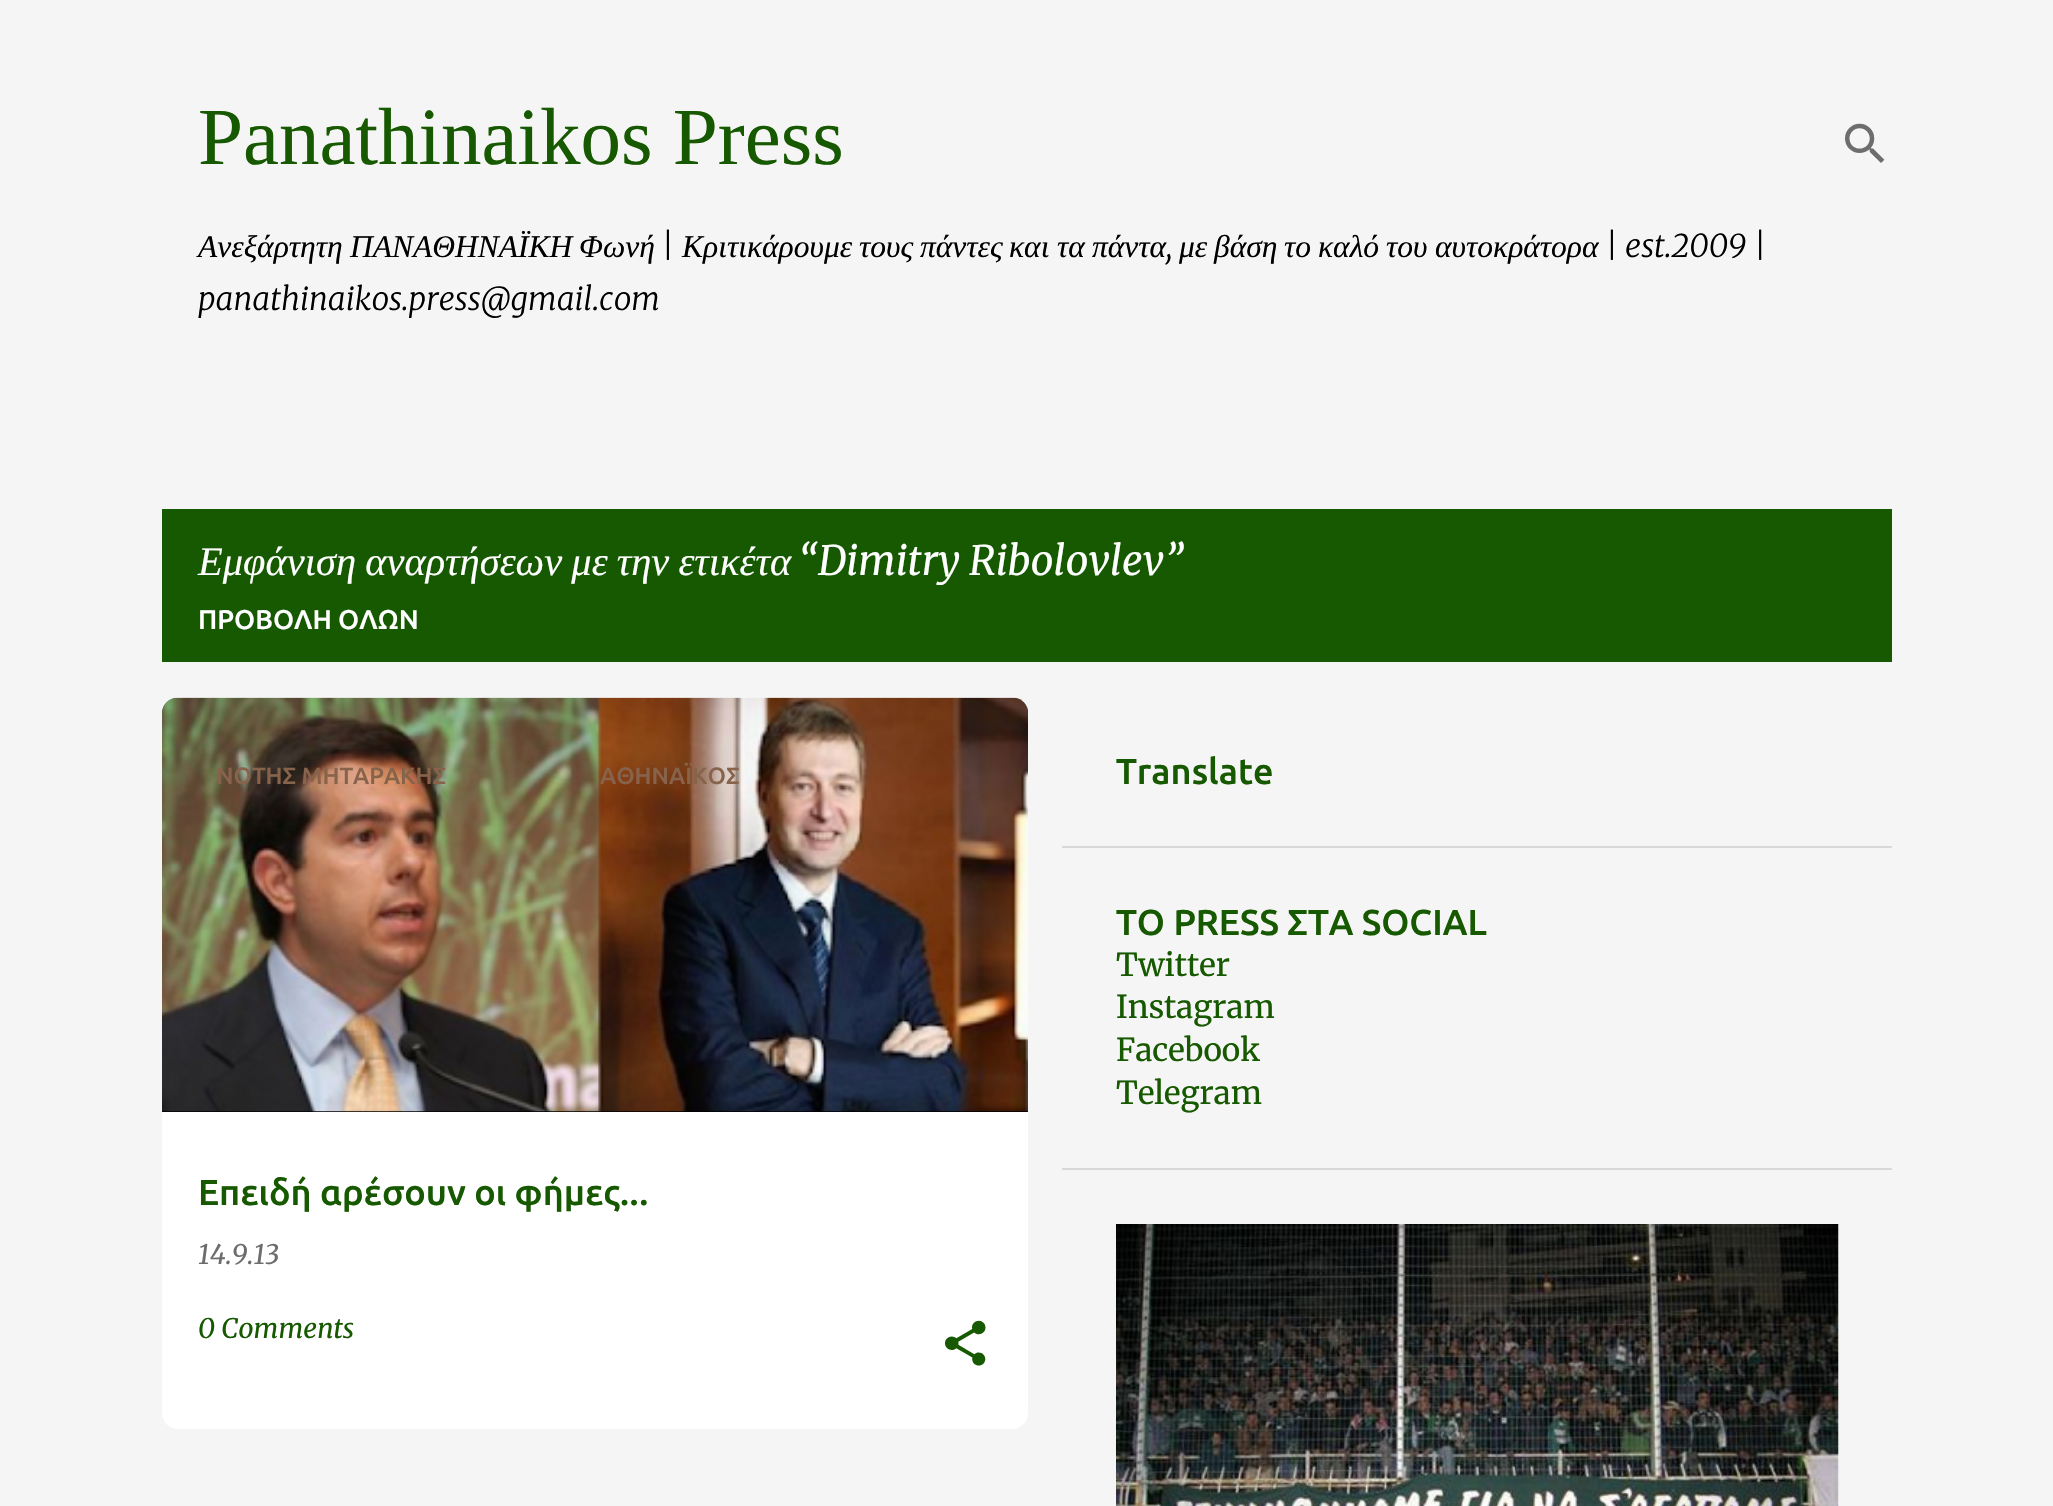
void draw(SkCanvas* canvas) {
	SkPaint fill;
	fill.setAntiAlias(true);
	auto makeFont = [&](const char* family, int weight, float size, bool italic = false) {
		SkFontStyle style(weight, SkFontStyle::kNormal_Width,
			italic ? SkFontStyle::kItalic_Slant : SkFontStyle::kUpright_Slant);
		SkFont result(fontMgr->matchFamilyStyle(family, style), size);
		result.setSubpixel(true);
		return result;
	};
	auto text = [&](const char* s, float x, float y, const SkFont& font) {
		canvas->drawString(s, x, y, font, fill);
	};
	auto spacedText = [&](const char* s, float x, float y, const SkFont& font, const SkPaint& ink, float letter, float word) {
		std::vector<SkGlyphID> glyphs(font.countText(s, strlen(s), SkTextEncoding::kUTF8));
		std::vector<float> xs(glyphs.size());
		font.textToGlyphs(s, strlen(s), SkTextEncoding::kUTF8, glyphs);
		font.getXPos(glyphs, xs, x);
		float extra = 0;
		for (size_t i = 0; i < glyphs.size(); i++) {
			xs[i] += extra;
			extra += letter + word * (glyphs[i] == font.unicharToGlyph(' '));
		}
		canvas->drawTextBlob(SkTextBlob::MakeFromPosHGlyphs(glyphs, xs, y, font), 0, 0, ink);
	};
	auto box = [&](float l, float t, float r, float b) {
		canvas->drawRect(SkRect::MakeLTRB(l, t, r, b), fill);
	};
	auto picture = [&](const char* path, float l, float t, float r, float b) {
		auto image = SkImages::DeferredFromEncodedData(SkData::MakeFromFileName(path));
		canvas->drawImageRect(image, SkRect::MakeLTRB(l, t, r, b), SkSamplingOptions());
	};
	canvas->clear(0xFFF5F5F5);
	picture("image0.png", 1845, 123, 1885, 163);
	fill.setColor(0xFF165900);
	box(162, 509, 1892, 662);
	fill.setColor(0xFF000000);
	canvas->drawPath(SkPathBuilder().moveTo(178, 698).lineTo(1012, 698).cubicTo(1021, 698, 1028, 705, 1028, 714).lineTo(1028, 1112).lineTo(162, 1112).lineTo(162, 714).cubicTo(162, 705, 169, 698, 178, 698).close().detach(), fill);
	picture("image1.png", 162, 697, 1028, 1112);
	fill.setColor(0xFFFFFFFF);
	canvas->drawPath(SkPathBuilder().moveTo(162, 1112).lineTo(1028, 1112).lineTo(1028, 1413).cubicTo(1028, 1422, 1021, 1429, 1012, 1429).lineTo(178, 1429).cubicTo(169, 1429, 162, 1422, 162, 1413).close().detach(), fill);
	picture("image2.png", 945, 1320, 986, 1366);
	fill.setColor(0xFFD8D8D8);
	box(1062, 846, 1892, 848);
	box(1062, 1168, 1892, 1170);
	picture("image3.png", 1116, 1224, 1839, 1506);
	auto font1 = makeFont("Liberation Serif", 400, 81);
	fill.setColor(0xFF165900);
	text("Panathinaikos Press", 198, 164, font1);
	auto font2 = makeFont("Liberation Serif", 400, 31.5f, true);
	fill.setColor(0xFF000000);
	text("Ανεξάρτητη", 198, 257, font2);
	text("ΠΑΝΑΘΗΝΑΪΚΗ", 350, 257, font2);
	text("Φωνή", 579, 257, font2);
	auto font3 = makeFont("Merriweather", 300, 31.5f, true);
	text("|", 661, 257, font3);
	text("Κριτικάρουμε", 682, 257, font2);
	text("τους", 859, 257, font2);
	text("πάντες", 920, 257, font2);
	text("και", 1009, 257, font2);
	text("τα", 1057, 257, font2);
	text("πάντα", 1092, 257, font2);
	text(",", 1166, 257, font3);
	text("με", 1179, 257, font2);
	text("βάση", 1214, 257, font2);
	text("το", 1284, 257, font2);
	text("καλό", 1318, 257, font2);
	text("του", 1386, 257, font2);
	text("αυτοκράτορα", 1435, 257, font2);
	text("| est.2009 |", 1605, 257, font3);
	text("panathinaikos.press@gmail.com", 198, 310, font3);
	auto font4 = makeFont("Liberation Serif", 400, 40.5f, true);
	fill.setColor(0xFFFFFFFF);
	spacedText("Εμφάνιση αναρτήσεων με την ετικέτα", 198, 575, font4, fill, 0, -1);
	auto font5 = makeFont("Merriweather", 400, 40.5f, true);
	text("“Dimitry Ribolovlev”", 799, 575, font5);
	auto font6 = makeFont("Ubuntu", 500, 27);
	text("ΠΡΟΒΟΛΗ ΟΛΩΝ", 198, 629, font6);
	auto font7 = makeFont("Ubuntu", 500, 23.6f);
	fill.setColor(0xFF87634B);
	text("ΝΟΤΗΣ ΜΗΤΑΡΑΚΗΣ", 216, 784, font7);
	text("ΑΘΗΝΑΪΚΟΣ", 600, 784, font7);
	auto font8 = makeFont("Merriweather", 400, 27, true);
	fill.setColor(0xFF6D6D6D);
	text("14.9.13", 198, 1264, font8);
	auto font9 = makeFont("Ubuntu", 500, 36);
	fill.setColor(0xFF165900);
	text("Επειδή αρέσουν οι φήμες...", 198, 1205, font9);
	text("0 Comments", 198, 1338, font8);
	text("Translate", 1116, 784, font9);
	text("ΤΟ PRESS ΣΤΑ SOCIAL", 1116, 935, font9);
	auto font10 = makeFont("Merriweather", 300, 31.5f);
	text("Twitter", 1116, 976, font10);
	text("Instagram", 1116, 1018, font10);
	text("Facebook", 1116, 1061, font10);
	text("Telegram", 1116, 1104, font10);
}
